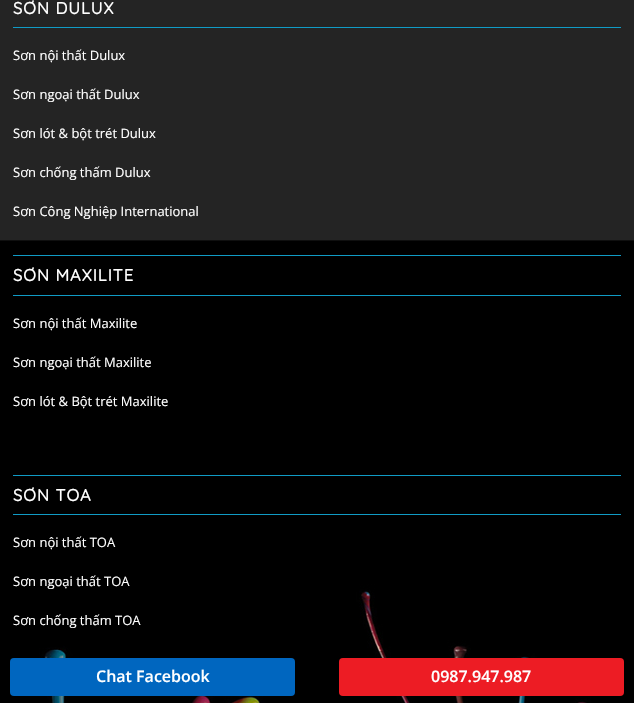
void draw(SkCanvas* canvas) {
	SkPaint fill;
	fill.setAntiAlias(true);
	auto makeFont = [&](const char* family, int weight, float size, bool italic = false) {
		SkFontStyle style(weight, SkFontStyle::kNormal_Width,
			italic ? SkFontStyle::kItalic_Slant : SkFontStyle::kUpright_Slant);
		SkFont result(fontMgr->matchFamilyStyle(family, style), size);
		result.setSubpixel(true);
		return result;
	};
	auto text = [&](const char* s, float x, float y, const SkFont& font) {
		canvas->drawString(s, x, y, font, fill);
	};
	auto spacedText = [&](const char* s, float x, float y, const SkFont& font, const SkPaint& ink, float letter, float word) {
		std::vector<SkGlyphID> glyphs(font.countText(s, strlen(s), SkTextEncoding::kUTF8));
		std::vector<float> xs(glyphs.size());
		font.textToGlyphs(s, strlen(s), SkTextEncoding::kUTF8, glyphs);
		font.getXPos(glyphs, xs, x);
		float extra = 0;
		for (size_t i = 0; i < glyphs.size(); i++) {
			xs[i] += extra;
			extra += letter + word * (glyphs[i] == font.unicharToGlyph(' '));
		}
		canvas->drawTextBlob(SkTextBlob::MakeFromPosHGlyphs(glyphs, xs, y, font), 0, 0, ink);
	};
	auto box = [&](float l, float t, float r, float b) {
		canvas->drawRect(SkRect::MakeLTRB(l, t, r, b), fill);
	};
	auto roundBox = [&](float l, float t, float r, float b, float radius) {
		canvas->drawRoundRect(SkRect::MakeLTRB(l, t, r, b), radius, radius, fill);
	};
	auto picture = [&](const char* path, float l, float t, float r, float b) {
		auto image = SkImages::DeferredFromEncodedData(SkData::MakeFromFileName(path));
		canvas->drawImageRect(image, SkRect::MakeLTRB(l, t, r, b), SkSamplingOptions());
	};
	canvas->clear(0xFF242424);
	picture("image0.png", 0, 240, 634, 703);
	fill.setColor(0xFF109BC5);
	box(13, 27, 621, 28);
	box(13, 255, 621, 256);
	box(13, 295, 621, 296);
	box(13, 475, 621, 476);
	box(13, 514, 621, 515);
	fill.setColor(0x4D000000);
	box(44, 651, 587, 703);
	fill.setColor(0xFF0066BF);
	roundBox(10, 658, 295, 696, 4);
	fill.setColor(0xFFED1C24);
	roundBox(339, 658, 624, 696, 4);
	auto font1 = makeFont("Quicksand", 700, 16.5f);
	fill.setColor(0xFFFFFFFF);
	spacedText("SƠN DULUX", 13, 14, font1, fill, 1, 0);
	auto font2 = makeFont("Open Sans", 400, 13);
	text("Sơn nội thất Dulux", 13, 60, font2);
	text("Sơn ngoại thất Dulux", 13, 99, font2);
	text("Sơn lót & bột trét Dulux", 13, 138, font2);
	text("Sơn chống thấm Dulux", 13, 177, font2);
	text("Sơn Công Nghiệp International", 13, 216, font2);
	spacedText("SƠN MAXILITE", 13, 281, font1, fill, 1, 0);
	text("Sơn nội thất Maxilite", 13, 328, font2);
	text("Sơn ngoại thất Maxilite", 13, 367, font2);
	text("Sơn lót & Bột trét Maxilite", 13, 406, font2);
	spacedText("SƠN TOA", 13, 501, font1, fill, 1, 0);
	text("Sơn nội thất TOA", 13, 547, font2);
	text("Sơn ngoại thất TOA", 13, 586, font2);
	text("Sơn chống thấm TOA", 13, 625, font2);
	auto font3 = makeFont("Open Sans", 600, 16);
	text("Chat Facebook", 96, 682, font3);
	text("0987.947.987", 431, 682, font3);
}
